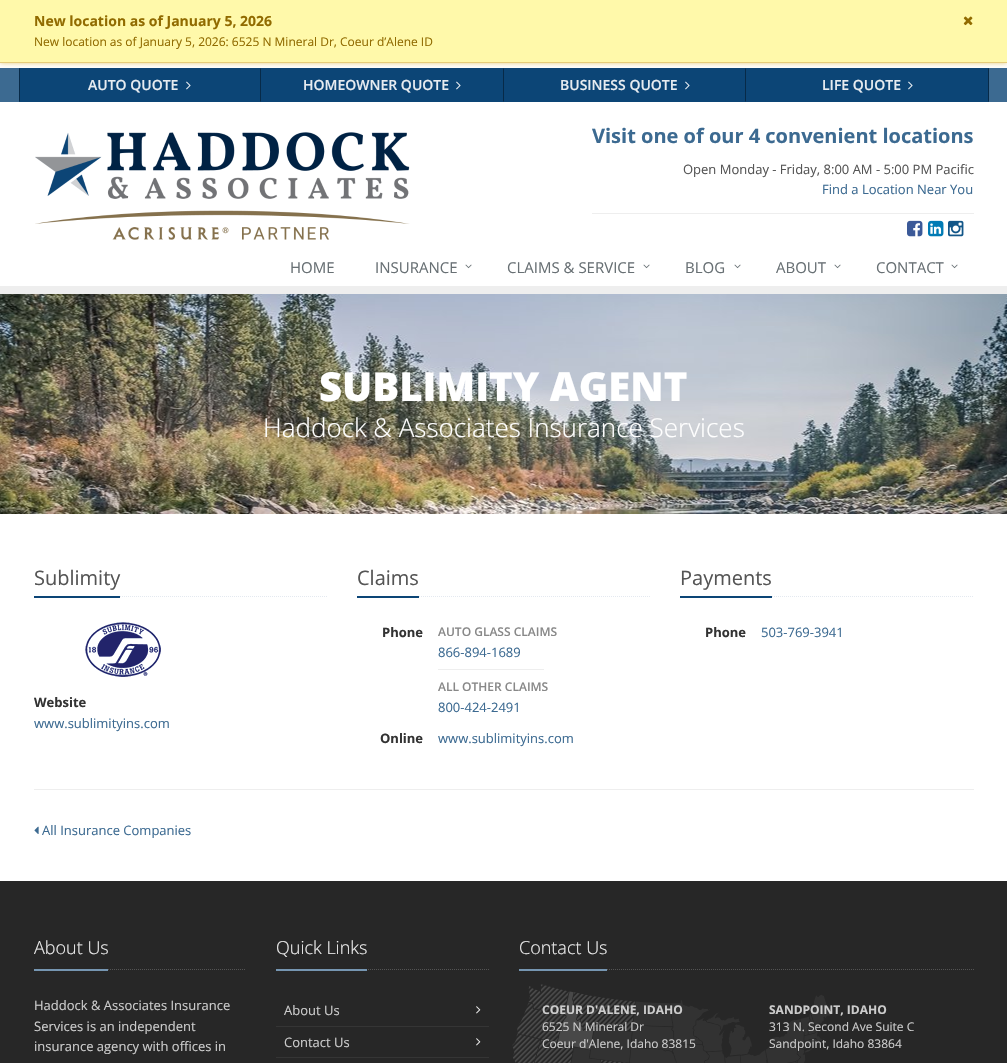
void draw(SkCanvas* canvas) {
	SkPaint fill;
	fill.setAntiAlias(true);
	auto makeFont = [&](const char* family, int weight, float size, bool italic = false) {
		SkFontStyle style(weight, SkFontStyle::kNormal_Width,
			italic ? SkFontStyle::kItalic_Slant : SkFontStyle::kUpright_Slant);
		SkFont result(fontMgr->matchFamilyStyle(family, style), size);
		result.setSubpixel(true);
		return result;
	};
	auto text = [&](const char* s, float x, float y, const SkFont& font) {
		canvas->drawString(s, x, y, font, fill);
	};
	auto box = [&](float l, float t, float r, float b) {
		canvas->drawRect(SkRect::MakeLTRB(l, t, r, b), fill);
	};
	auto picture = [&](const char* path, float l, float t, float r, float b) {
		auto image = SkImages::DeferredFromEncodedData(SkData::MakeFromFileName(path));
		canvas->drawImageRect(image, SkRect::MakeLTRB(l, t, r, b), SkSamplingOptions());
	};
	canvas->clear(0xFFFFFFFF);
	fill.setColor(0xFFE5CC7A);
	fill.setMaskFilter(SkMaskFilter::MakeBlur(kNormal_SkBlurStyle, 2.5f));
	canvas->drawRect(SkRect::MakeLTRB(0, 0, 1007, 63), fill);
	fill.setMaskFilter(nullptr);
	fill.setColor(0xFFFFF9AA);
	box(0, 0, 1007, 62);
	fill.setColor(0xFFE5CC7A);
	box(0, 62, 1007, 63);
	picture("image0.png", 963, 16, 973, 26);
	fill.setColor(0xFFEEEEEE);
	box(0, 286, 1007, 294);
	fill.setColor(0xFF3C6A91);
	box(0, 68, 1007, 102);
	fill.setColor(0xFF0C4576);
	box(19, 68, 989, 102);
	fill.setColor(0xFF072A48);
	canvas->drawPath(SkPathBuilder().moveTo(261, 68).lineTo(261, 102).lineTo(260, 101).lineTo(260, 69).close().detach(), fill);
	canvas->drawPath(SkPathBuilder().moveTo(19, 102).lineTo(19, 68).lineTo(20, 69).lineTo(20, 101).close().detach(), fill);
	picture("image1.png", 186, 81, 191, 90);
	canvas->drawPath(SkPathBuilder().moveTo(504, 68).lineTo(504, 102).lineTo(503, 101).lineTo(503, 69).close().detach(), fill);
	picture("image1.png", 456, 81, 461, 90);
	canvas->drawPath(SkPathBuilder().moveTo(746, 68).lineTo(746, 102).lineTo(745, 101).lineTo(745, 69).close().detach(), fill);
	picture("image1.png", 685, 81, 690, 90);
	canvas->drawPath(SkPathBuilder().moveTo(989, 68).lineTo(989, 102).lineTo(988, 101).lineTo(988, 69).close().detach(), fill);
	picture("image1.png", 908, 81, 913, 90);
	picture("image2.png", 35, 132, 410, 240);
	fill.setColor(0xFFEEEEEE);
	box(592, 213, 974, 214);
	picture("image3.png", 907, 220, 923, 237);
	picture("image4.png", 928, 220, 944, 237);
	picture("image5.png", 948, 220, 964, 237);
	picture("image6.png", 465, 264, 472, 269);
	picture("image6.png", 643, 264, 650, 269);
	picture("image6.png", 734, 264, 741, 269);
	picture("image6.png", 834, 264, 841, 269);
	picture("image6.png", 951, 264, 958, 269);
	picture("image7.png", 0, 294, 1007, 514);
	fill.setStyle(SkPaint::kStroke_Style);
	fill.setStrokeWidth(1);
	fill.setColor(0xFFE4E9F0);
	fill.setPathEffect(SkDashPathEffect::Make({{1, 1}}, 0));
	canvas->drawPath(SkPathBuilder().moveTo(34, 596.5f).lineTo(327, 596.5f).detach(), fill);
	fill.setPathEffect(nullptr);
	fill.setStyle(SkPaint::kFill_Style);
	fill.setColor(0xFF0C4576);
	box(34, 596, 120, 598);
	picture("image8.png", 85, 622, 161, 677);
	fill.setStyle(SkPaint::kStroke_Style);
	fill.setColor(0xFFE4E9F0);
	fill.setPathEffect(SkDashPathEffect::Make({{1, 1}}, 0));
	canvas->drawPath(SkPathBuilder().moveTo(357, 596.5f).lineTo(650, 596.5f).detach(), fill);
	fill.setPathEffect(nullptr);
	fill.setStyle(SkPaint::kFill_Style);
	fill.setColor(0xFF0C4576);
	box(357, 596, 419, 598);
	fill.setColor(0xFFEEEEEE);
	box(438, 669, 544, 670);
	fill.setStyle(SkPaint::kStroke_Style);
	fill.setColor(0xFFE4E9F0);
	fill.setPathEffect(SkDashPathEffect::Make({{1, 1}}, 0));
	canvas->drawPath(SkPathBuilder().moveTo(680, 596.5f).lineTo(973, 596.5f).detach(), fill);
	fill.setPathEffect(nullptr);
	fill.setStyle(SkPaint::kFill_Style);
	fill.setColor(0xFF0C4576);
	box(680, 596, 772, 598);
	fill.setColor(0xFFEEEEEE);
	box(34, 789, 974, 790);
	picture("image9.png", 34, 826, 39, 834);
	fill.setColor(0xFF272727);
	box(0, 881, 1007, 1063);
	fill.setStyle(SkPaint::kStroke_Style);
	fill.setColor(0xFF545454);
	fill.setPathEffect(SkDashPathEffect::Make({{1, 1}}, 0));
	canvas->drawPath(SkPathBuilder().moveTo(34, 969.5f).lineTo(246, 969.5f).detach(), fill);
	fill.setPathEffect(nullptr);
	fill.setStyle(SkPaint::kFill_Style);
	fill.setColor(0xFF7696B2);
	box(34, 969, 108, 971);
	fill.setStyle(SkPaint::kStroke_Style);
	fill.setColor(0xFF545454);
	fill.setPathEffect(SkDashPathEffect::Make({{1, 1}}, 0));
	canvas->drawPath(SkPathBuilder().moveTo(276, 969.5f).lineTo(489, 969.5f).detach(), fill);
	fill.setPathEffect(nullptr);
	fill.setStyle(SkPaint::kFill_Style);
	fill.setColor(0xFF7696B2);
	box(276, 969, 367, 971);
	picture("image10.png", 476, 1006, 481, 1014);
	fill.setColor(0xFF353535);
	box(276, 1026, 489, 1027);
	picture("image10.png", 476, 1038, 481, 1046);
	box(276, 1057, 489, 1058);
	picture("image11.png", 512, 984, 833, 1063);
	fill.setStyle(SkPaint::kStroke_Style);
	fill.setColor(0xFF545454);
	fill.setPathEffect(SkDashPathEffect::Make({{1, 1}}, 0));
	canvas->drawPath(SkPathBuilder().moveTo(519, 969.5f).lineTo(974, 969.5f).detach(), fill);
	fill.setPathEffect(nullptr);
	fill.setStyle(SkPaint::kFill_Style);
	fill.setColor(0xFF7696B2);
	box(519, 969, 607, 971);
	auto font1 = makeFont("Open Sans", 700, 14);
	fill.setColor(0xFF916B00);
	text("New location as of January 5, 2026", 34, 26, font1);
	auto font2 = makeFont("Open Sans", 400, 12);
	text("New location as of January 5, 2026: 6525 N Mineral Dr, Coeur d’Alene ID", 34, 46, font2);
	auto font3 = makeFont("Open Sans", 600, 14);
	fill.setColor(0xFFE7ECF1);
	text("AUTO QUOTE", 88, 90, font3);
	text("HOMEOWNER QUOTE", 303, 90, font3);
	text("BUSINESS QUOTE", 560, 90, font3);
	text("LIFE QUOTE", 822, 90, font3);
	auto font4 = makeFont("Open Sans", 700, 20);
	fill.setColor(0xFF3C6A91);
	text("Visit one of our 4 convenient locations", 592, 143, font4);
	auto font5 = makeFont("Open Sans", 400, 13);
	fill.setColor(0xFF555555);
	text("Open Monday - Friday, 8:00 AM - 5:00 PM Pacific", 683, 174, font5);
	fill.setColor(0xFF3C6A91);
	text("Find a Location Near You", 822, 194, font5);
	auto font6 = makeFont("Open Sans", 400, 15);
	fill.setColor(0xFF687074);
	text("HOME", 290, 273, font6);
	text("INSURANCE", 375, 273, font6);
	text("CLAIMS & SERVICE", 507, 273, font6);
	text("BLOG", 685, 273, font6);
	text("ABOUT", 776, 273, font6);
	text("CONTACT", 876, 273, font6);
	auto font7 = makeFont("Open Sans", 800, 40);
	fill.setColor(0xFFFFFFFF);
	text("SUBLIMITY AGENT", 319, 401, font7);
	auto font8 = makeFont("Open Sans", 300, 26);
	text("Haddock & Associates Insurance Services", 263, 437, font8);
	auto font9 = makeFont("Open Sans", 400, 20);
	fill.setColor(0xFF555555);
	text("Sublimity", 34, 585, font9);
	auto font10 = makeFont("Open Sans", 700, 13);
	fill.setColor(0xFF333333);
	text("Website", 34, 707, font10);
	fill.setColor(0xFF3C6A91);
	text("www.sublimityins.com", 34, 728, font5);
	fill.setColor(0xFF555555);
	text("Claims", 357, 585, font9);
	fill.setColor(0xFF333333);
	text("Phone", 382, 637, font10);
	auto font11 = makeFont("Open Sans", 600, 12);
	fill.setColor(0xFF888888);
	text("AUTO GLASS CLAIMS", 438, 636, font11);
	fill.setColor(0xFF3C6A91);
	text("866-894-1689", 438, 657, font5);
	fill.setColor(0xFF888888);
	text("ALL OTHER CLAIMS", 438, 691, font11);
	fill.setColor(0xFF3C6A91);
	text("800-424-2491", 438, 712, font5);
	fill.setColor(0xFF333333);
	text("Online", 380, 743, font10);
	fill.setColor(0xFF3C6A91);
	text("www.sublimityins.com", 438, 743, font5);
	fill.setColor(0xFF555555);
	text("Payments", 680, 585, font9);
	fill.setColor(0xFF333333);
	text("Phone", 705, 637, font10);
	fill.setColor(0xFF3C6A91);
	text("503-769-3941", 761, 637, font5);
	text("All Insurance Companies", 42, 835, font5);
	auto font12 = makeFont("Open Sans", 300, 18);
	fill.setColor(0xFFEEEEEE);
	text("About Us", 34, 954, font12);
	fill.setColor(0xFFCCCCCC);
	text("Haddock & Associates Insurance", 34, 1010, font5);
	text("Services is an independent", 34, 1031, font5);
	text("insurance agency with offices in", 34, 1051, font5);
	fill.setColor(0xFFEEEEEE);
	text("Quick Links", 276, 954, font12);
	fill.setColor(0xFFCCCCCC);
	text("About Us", 284, 1015, font5);
	text("Contact Us", 284, 1047, font5);
	fill.setColor(0xFFEEEEEE);
	text("Contact Us", 519, 954, font12);
	auto font13 = makeFont("Open Sans", 700, 12);
	fill.setColor(0xFFCCCCCC);
	text("COEUR D'ALENE, IDAHO", 542, 1014, font13);
	text("6525 N Mineral Dr", 542, 1031, font2);
	text("Coeur d'Alene, Idaho 83815", 542, 1048, font2);
	text("SANDPOINT, IDAHO", 769, 1014, font13);
	text("313 N. Second Ave Suite C", 769, 1031, font2);
	text("Sandpoint, Idaho 83864", 769, 1048, font2);
}
